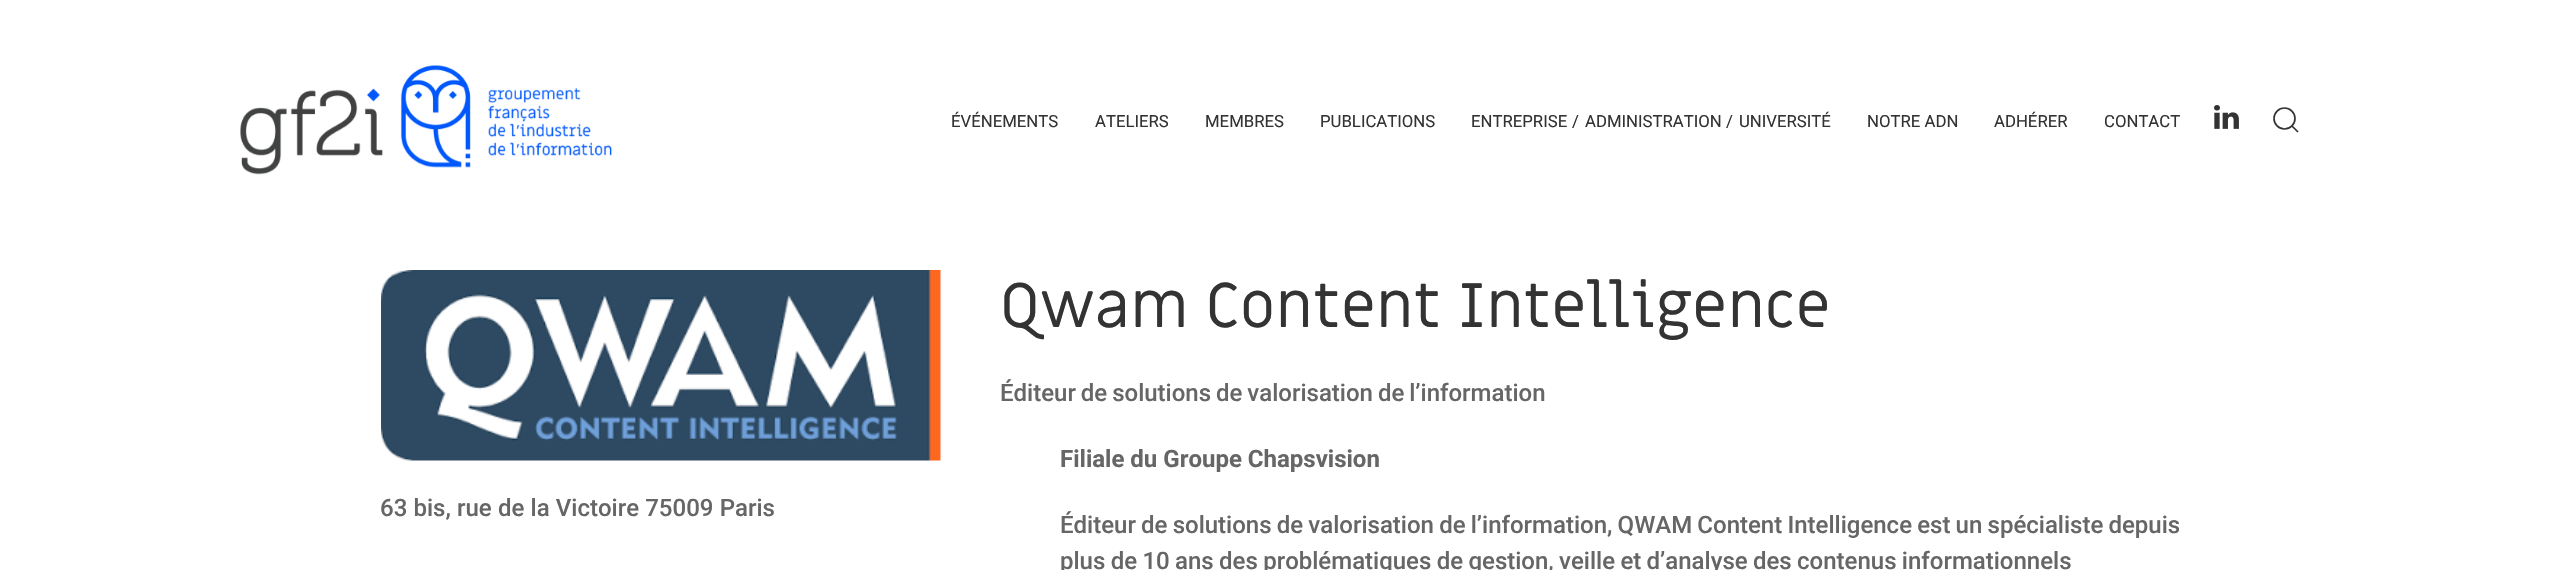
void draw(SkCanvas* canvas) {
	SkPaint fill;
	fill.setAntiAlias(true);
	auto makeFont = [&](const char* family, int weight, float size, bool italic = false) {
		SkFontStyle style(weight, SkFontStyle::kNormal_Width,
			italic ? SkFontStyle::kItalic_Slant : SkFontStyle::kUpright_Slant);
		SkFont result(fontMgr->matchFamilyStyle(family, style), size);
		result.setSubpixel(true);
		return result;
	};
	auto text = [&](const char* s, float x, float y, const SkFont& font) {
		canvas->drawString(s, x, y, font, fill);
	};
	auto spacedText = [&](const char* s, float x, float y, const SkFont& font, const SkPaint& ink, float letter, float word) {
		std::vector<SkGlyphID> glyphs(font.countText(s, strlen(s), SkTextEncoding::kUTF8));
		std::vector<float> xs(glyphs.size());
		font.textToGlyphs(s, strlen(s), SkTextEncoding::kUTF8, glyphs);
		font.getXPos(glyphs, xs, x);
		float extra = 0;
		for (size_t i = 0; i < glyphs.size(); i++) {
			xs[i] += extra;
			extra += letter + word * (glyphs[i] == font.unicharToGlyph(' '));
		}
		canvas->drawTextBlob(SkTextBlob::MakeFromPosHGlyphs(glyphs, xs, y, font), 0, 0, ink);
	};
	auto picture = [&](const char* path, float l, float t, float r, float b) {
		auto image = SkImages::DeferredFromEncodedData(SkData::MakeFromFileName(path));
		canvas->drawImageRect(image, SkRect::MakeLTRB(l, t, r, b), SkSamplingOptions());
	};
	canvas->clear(0xFFFFFFFF);
	picture("image0.png", 240, 65, 612, 175);
	picture("image1.png", 2214, 105, 2239, 129);
	fill.setStyle(SkPaint::kStroke_Style);
	fill.setStrokeWidth(1.7f);
	fill.setColor(0xFF333333);
	canvas->drawCircle(2284.5f, 118.5f, 10.5f, fill);
	canvas->drawPath(SkPathBuilder().moveTo(2292, 126).lineTo(2298, 132).close().detach(), fill);
	picture("image2.png", 381, 270, 941, 461);
	auto font1 = makeFont("Roboto", 400, 16.75f);
	fill.setStyle(SkPaint::kFill_Style);
	text("ÉVÉNEMENTS", 951, 127, font1);
	text("ATELIERS", 1095, 127, font1);
	text("MEMBRES", 1205, 127, font1);
	text("PUBLICATIONS", 1320, 127, font1);
	text("ENTREPRISE", 1471, 127, font1);
	text("/", 1572, 127, font1);
	text("ADMINISTRATION", 1585, 127, font1);
	text("/", 1726, 127, font1);
	text("UNIVERSITÉ", 1739, 127, font1);
	text("NOTRE ADN", 1867, 127, font1);
	text("ADHÉRER", 1994, 127, font1);
	text("CONTACT", 2104, 127, font1);
	auto font2 = makeFont("Roboto", 500, 24);
	fill.setColor(0xFF666666);
	spacedText("63 bis, rue de la Victoire 75009 Paris", 380, 516, font2, fill, 0, 0.25f);
	auto font3 = makeFont("Miriam Libre", 400, 63);
	fill.setColor(0xFF333333);
	text("Qwam Content Intelligence", 1000, 327, font3);
	fill.setColor(0xFF666666);
	spacedText("Éditeur de solutions de valorisation de l’information", 1000, 401, font2, fill, 0, -1);
	auto font4 = makeFont("Roboto", 700, 24);
	text("Filiale du Groupe Chapsvision", 1060, 467, font4);
	spacedText("Éditeur de solutions de valorisation de l’information, QWAM Content Intelligence est un spécialiste depuis", 1060, 533, font2, fill, 0, -0.75f);
	spacedText("plus de 10 ans des problématiques de gestion, veille et d’analyse des contenus informationnels", 1060, 569, font2, fill, 0, -0.6f);
}
